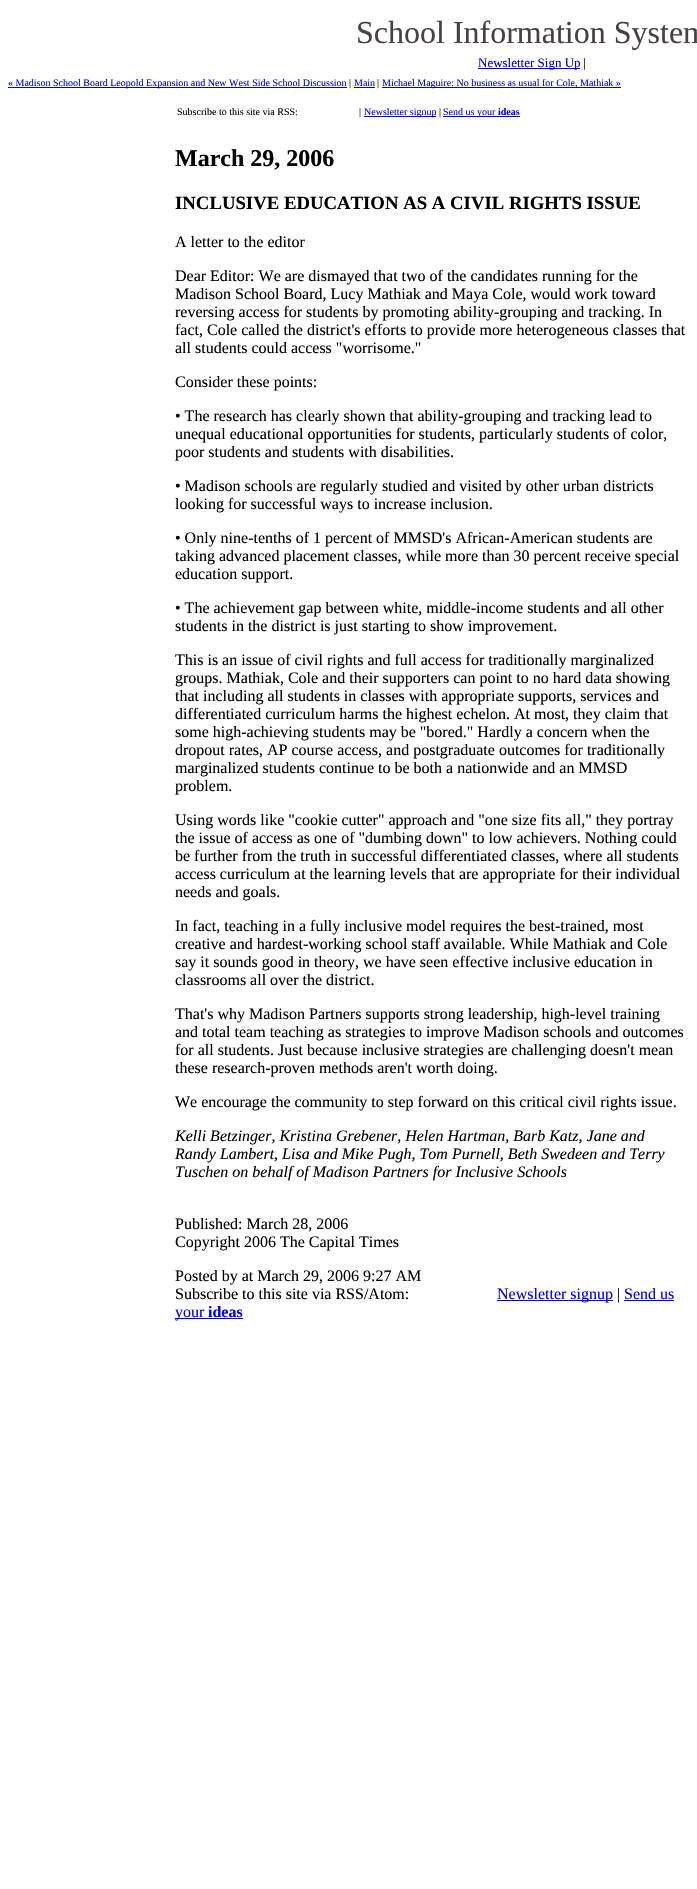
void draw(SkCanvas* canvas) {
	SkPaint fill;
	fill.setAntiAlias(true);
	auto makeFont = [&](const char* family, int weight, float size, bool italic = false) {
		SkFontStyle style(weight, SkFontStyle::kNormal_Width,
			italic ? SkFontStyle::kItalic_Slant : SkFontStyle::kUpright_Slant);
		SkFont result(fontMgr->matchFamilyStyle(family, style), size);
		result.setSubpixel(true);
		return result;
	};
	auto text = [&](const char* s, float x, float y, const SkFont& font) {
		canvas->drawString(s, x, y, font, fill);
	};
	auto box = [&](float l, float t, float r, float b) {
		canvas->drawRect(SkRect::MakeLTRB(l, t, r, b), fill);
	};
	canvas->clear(0xFFFFFFFF);
	fill.setColor(0xFF0000EE);
	box(478, 68, 580, 69);
	box(8, 87, 347, 88);
	box(354, 87, 375, 88);
	box(382, 87, 621, 88);
	box(364, 116, 436, 117);
	box(443, 116, 520, 117);
	box(497, 1300, 613, 1301);
	box(624, 1300, 674, 1301);
	box(175, 1318, 243, 1319);
	auto font1 = makeFont("Liberation Serif", 400, 32);
	fill.setColor(0xFF494141);
	text("School Information System", 356, 43, font1);
	auto font2 = makeFont("Liberation Serif", 400, 13);
	fill.setColor(0xFF0000EE);
	text("Newsletter Sign Up", 478, 67, font2);
	fill.setColor(0xFF000000);
	text("|", 583, 67, font2);
	auto font3 = makeFont("Liberation Serif", 400, 10);
	fill.setColor(0xFF0000EE);
	text("« Madison School Board Leopold Expansion and New West Side School Discussion", 8, 86, font3);
	fill.setColor(0xFF000000);
	text("|", 349, 86, font3);
	fill.setColor(0xFF0000EE);
	text("Main", 354, 86, font3);
	fill.setColor(0xFF000000);
	text("|", 377, 86, font3);
	fill.setColor(0xFF0000EE);
	text("Michael Maguire: No business as usual for Cole, Mathiak »", 382, 86, font3);
	fill.setColor(0xFF000000);
	text("Subscribe to this site via RSS:", 177, 115, font3);
	text("|", 359, 115, font3);
	fill.setColor(0xFF0000EE);
	text("Newsletter signup", 364, 115, font3);
	fill.setColor(0xFF000000);
	text("|", 439, 115, font3);
	fill.setColor(0xFF0000EE);
	text("Send us your", 443, 115, font3);
	auto font4 = makeFont("Liberation Serif", 700, 10);
	text("ideas", 498, 115, font4);
	auto font5 = makeFont("Liberation Serif", 700, 24);
	fill.setColor(0xFF000000);
	text("March 29, 2006", 175, 166, font5);
	auto font6 = makeFont("Liberation Serif", 700, 18.75f);
	text("INCLUSIVE EDUCATION AS A CIVIL RIGHTS ISSUE", 175, 209, font6);
	auto font7 = makeFont("Liberation Serif", 400, 16);
	text("A letter to the editor", 175, 247, font7);
	text("Dear Editor: We are dismayed that two of the candidates running for the", 175, 281, font7);
	text("Madison School Board, Lucy Mathiak and Maya Cole, would work toward", 175, 299, font7);
	text("reversing access for students by promoting ability-grouping and tracking. In", 175, 317, font7);
	text("fact, Cole called the district's efforts to provide more heterogeneous classes that", 175, 335, font7);
	text("all students could access \"worrisome.\"", 175, 353, font7);
	text("Consider these points:", 175, 387, font7);
	text("• The research has clearly shown that ability-grouping and tracking lead to", 175, 421, font7);
	text("unequal educational opportunities for students, particularly students of color,", 175, 439, font7);
	text("poor students and students with disabilities.", 175, 457, font7);
	text("• Madison schools are regularly studied and visited by other urban districts", 175, 491, font7);
	text("looking for successful ways to increase inclusion.", 175, 509, font7);
	text("• Only nine-tenths of 1 percent of MMSD's African-American students are", 175, 543, font7);
	text("taking advanced placement classes, while more than 30 percent receive special", 175, 561, font7);
	text("education support.", 175, 579, font7);
	text("• The achievement gap between white, middle-income students and all other", 175, 613, font7);
	text("students in the district is just starting to show improvement.", 175, 631, font7);
	text("This is an issue of civil rights and full access for traditionally marginalized", 175, 665, font7);
	text("groups. Mathiak, Cole and their supporters can point to no hard data showing", 175, 683, font7);
	text("that including all students in classes with appropriate supports, services and", 175, 701, font7);
	text("differentiated curriculum harms the highest echelon. At most, they claim that", 175, 719, font7);
	text("some high-achieving students may be \"bored.\" Hardly a concern when the", 175, 737, font7);
	text("dropout rates, AP course access, and postgraduate outcomes for traditionally", 175, 755, font7);
	text("marginalized students continue to be both a nationwide and an MMSD", 175, 773, font7);
	text("problem.", 175, 791, font7);
	text("Using words like \"cookie cutter\" approach and \"one size fits all,\" they portray", 175, 825, font7);
	text("the issue of access as one of \"dumbing down\" to low achievers. Nothing could", 175, 843, font7);
	text("be further from the truth in successful differentiated classes, where all students", 175, 861, font7);
	text("access curriculum at the learning levels that are appropriate for their individual", 175, 879, font7);
	text("needs and goals.", 175, 897, font7);
	text("In fact, teaching in a fully inclusive model requires the best-trained, most", 175, 931, font7);
	text("creative and hardest-working school staff available. While Mathiak and Cole", 175, 949, font7);
	text("say it sounds good in theory, we have seen effective inclusive education in", 175, 967, font7);
	text("classrooms all over the district.", 175, 985, font7);
	text("That's why Madison Partners supports strong leadership, high-level training", 175, 1019, font7);
	text("and total team teaching as strategies to improve Madison schools and outcomes", 175, 1037, font7);
	text("for all students. Just because inclusive strategies are challenging doesn't mean", 175, 1055, font7);
	text("these research-proven methods aren't worth doing.", 175, 1073, font7);
	text("We encourage the community to step forward on this critical civil rights issue.", 175, 1107, font7);
	auto font8 = makeFont("Liberation Serif", 400, 16, true);
	text("Kelli Betzinger, Kristina Grebener, Helen Hartman, Barb Katz, Jane and", 175, 1141, font8);
	text("Randy Lambert, Lisa and Mike Pugh, Tom Purnell, Beth Swedeen and Terry", 175, 1159, font8);
	text("Tuschen on behalf of Madison Partners for Inclusive Schools", 175, 1177, font8);
	text("Published: March 28, 2006", 175, 1229, font7);
	text("Copyright 2006 The Capital Times", 175, 1247, font7);
	text("Posted by at March 29, 2006 9:27 AM", 175, 1281, font7);
	text("Subscribe to this site via RSS/Atom:", 175, 1299, font7);
	fill.setColor(0xFF0000EE);
	text("Newsletter signup", 497, 1299, font7);
	fill.setColor(0xFF000000);
	text("|", 617, 1299, font7);
	fill.setColor(0xFF0000EE);
	text("Send us", 624, 1299, font7);
	text("your", 175, 1317, font7);
	auto font9 = makeFont("Liberation Serif", 700, 16);
	text("ideas", 208, 1317, font9);
}
